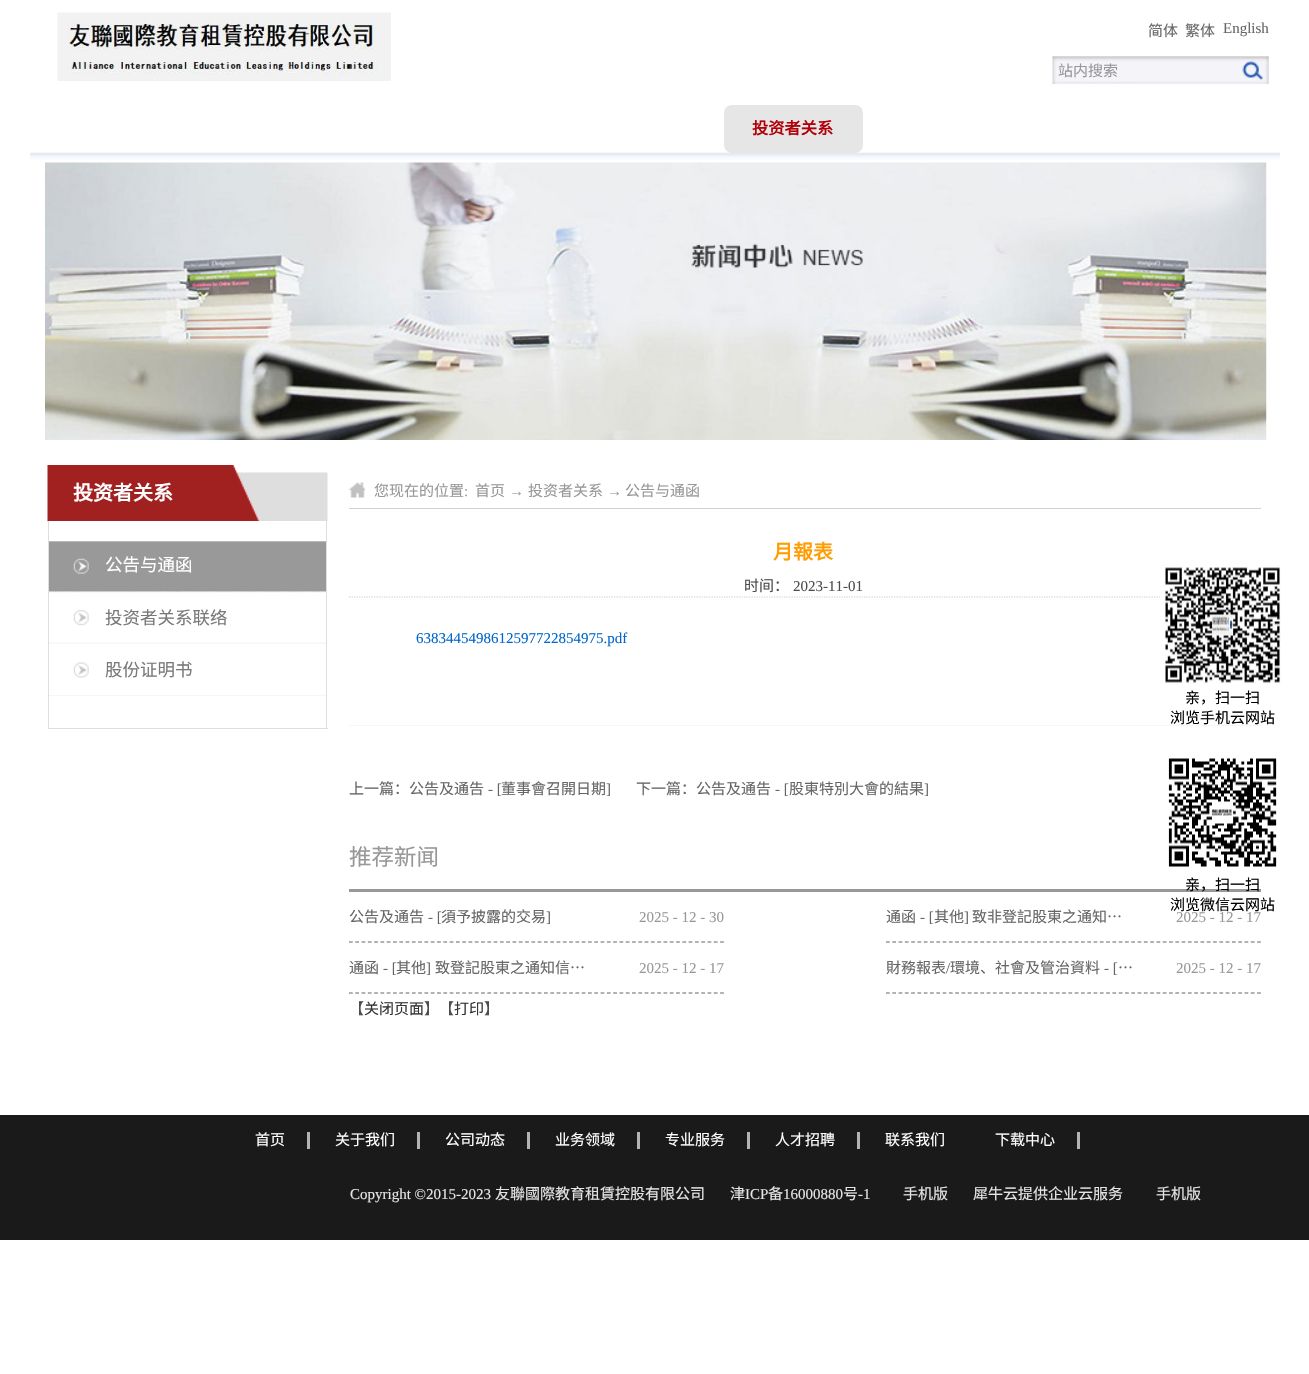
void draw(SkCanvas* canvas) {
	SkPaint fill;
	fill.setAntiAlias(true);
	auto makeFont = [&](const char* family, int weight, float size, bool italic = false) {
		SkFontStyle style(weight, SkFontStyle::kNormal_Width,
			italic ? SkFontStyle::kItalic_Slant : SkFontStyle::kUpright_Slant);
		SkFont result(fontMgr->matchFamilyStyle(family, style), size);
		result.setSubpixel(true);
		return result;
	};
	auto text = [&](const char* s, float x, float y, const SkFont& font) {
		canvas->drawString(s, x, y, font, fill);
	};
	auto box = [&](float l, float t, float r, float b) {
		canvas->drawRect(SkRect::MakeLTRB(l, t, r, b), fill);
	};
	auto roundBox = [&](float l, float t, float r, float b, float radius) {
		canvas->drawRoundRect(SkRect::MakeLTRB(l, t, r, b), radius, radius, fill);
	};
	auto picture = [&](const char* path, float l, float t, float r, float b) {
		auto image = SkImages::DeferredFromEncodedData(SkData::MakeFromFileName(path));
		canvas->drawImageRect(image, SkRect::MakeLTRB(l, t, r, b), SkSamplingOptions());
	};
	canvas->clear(0xFFFFFFFF);
	picture("image0.png", 57, 12, 391, 81);
	picture("image1.png", 1051, 56, 1242, 85);
	picture("image2.png", 1242, 56, 1270, 85);
	picture("image3.png", 30, 152, 1280, 160);
	fill.setColor(0xFFE6E6E6);
	roundBox(724, 105, 863, 153, 8);
	picture("image4.png", 45, 162, 1267, 440);
	picture("image5.png", 47, 465, 328, 522);
	fill.setColor(0xFFFFFFFF);
	box(49, 521, 328, 522);
	fill.setColor(0xFFDEDEDE);
	box(326, 521, 327, 729);
	box(48, 728, 328, 729);
	box(48, 521, 49, 729);
	picture("image6.png", 49, 541, 326, 593);
	picture("image7.png", 49, 592, 326, 644);
	picture("image8.png", 49, 662, 326, 696);
	fill.setColor(0xFFD0D0D0);
	box(349, 508, 1261, 509);
	picture("image9.png", 348, 482, 365, 498);
	fill.setStyle(SkPaint::kStroke_Style);
	fill.setStrokeWidth(1.2f);
	fill.setColor(0xFFCCCCCC);
	fill.setPathEffect(SkDashPathEffect::Make({{1.25f, 1.25f}}, 0));
	canvas->drawPath(SkPathBuilder().moveTo(349, 597).lineTo(1257.5f, 597).detach(), fill);
	fill.setPathEffect(nullptr);
	fill.setStyle(SkPaint::kFill_Style);
	fill.setColor(0xFFF6F6F6);
	box(349, 725, 1261, 726);
	fill.setColor(0xFF999999);
	box(349, 889, 1261, 892);
	fill.setStyle(SkPaint::kStroke_Style);
	fill.setColor(0xFF666666);
	fill.setPathEffect(SkDashPathEffect::Make({{3.75f, 2.54f}}, 0));
	canvas->drawPath(SkPathBuilder().moveTo(349, 942).lineTo(724, 942).detach(), fill);
	fill.setPathEffect(nullptr);
	fill.setPathEffect(SkDashPathEffect::Make({{3.75f, 2.54f}}, 0));
	canvas->drawPath(SkPathBuilder().moveTo(886, 942).lineTo(1261, 942).detach(), fill);
	fill.setPathEffect(nullptr);
	fill.setPathEffect(SkDashPathEffect::Make({{3.75f, 2.54f}}, 0));
	canvas->drawPath(SkPathBuilder().moveTo(349, 993).lineTo(724, 993).detach(), fill);
	fill.setPathEffect(nullptr);
	fill.setPathEffect(SkDashPathEffect::Make({{3.75f, 2.54f}}, 0));
	canvas->drawPath(SkPathBuilder().moveTo(886, 993).lineTo(1261, 993).detach(), fill);
	fill.setPathEffect(nullptr);
	picture("image10.png", 1160, 567, 1281, 684);
	picture("image11.png", 1168, 758, 1277, 867);
	fill.setStyle(SkPaint::kFill_Style);
	fill.setColor(0xFF1A1A1A);
	box(0, 1115, 1309, 1240);
	fill.setColor(0xFFB3B3B3);
	box(307, 1132, 310, 1149);
	box(417, 1132, 420, 1149);
	box(527, 1132, 530, 1149);
	box(637, 1132, 640, 1149);
	box(747, 1132, 750, 1149);
	box(857, 1132, 860, 1149);
	box(1077, 1132, 1080, 1149);
	auto font1 = makeFont("Noto Sans CJK SC", 400, 15);
	fill.setColor(0xFF666666);
	text("简体", 1148, 36, font1);
	text("繁体", 1185, 36, font1);
	auto font2 = makeFont("Liberation Serif", 400, 15);
	text("English", 1223, 33, font2);
	fill.setColor(0xFF989898);
	text("站内搜索", 1058, 76, font1);
	auto font3 = makeFont("Noto Sans CJK SC", 700, 16.25f);
	fill.setColor(0xFFB00009);
	text("投资者关系", 752, 134, font3);
	auto font4 = makeFont("Noto Sans CJK SC", 700, 20);
	fill.setColor(0xFFFFFFFF);
	text("投资者关系", 73, 500, font4);
	auto font5 = makeFont("Noto Sans CJK SC", 400, 17.5f);
	text("公告与通函", 105, 571, font5);
	fill.setColor(0xFF797979);
	text("投资者关系联络", 105, 624, font5);
	text("股份证明书", 105, 676, font5);
	fill.setColor(0xFF989898);
	text("您现在的位置", 374, 496, font1);
	text(":", 464, 496, font2);
	text("首页", 475, 496, font1);
	text("→", 509, 496, font2);
	text("投资者关系", 528, 496, font1);
	text("→", 607, 496, font2);
	text("公告与通函", 625, 496, font1);
	fill.setColor(0xFFFF9C00);
	text("月報表", 773, 559, font4);
	fill.setColor(0xFF4E4E4E);
	text("时间：", 744, 591, font1);
	text("2023-11-01", 793, 591, font2);
	fill.setColor(0xFF0066CC);
	text("6383445498612597722854975.pdf", 416, 643, font2);
	fill.setColor(0xFF666666);
	text("上一篇：公告及通告", 349, 794, font1);
	text("- [", 488, 794, font2);
	text("董事會召開日期", 501, 794, font1);
	text("]", 606, 794, font2);
	text("下一篇：公告及通告", 636, 794, font1);
	text("- [", 775, 794, font2);
	text("股東特別大會的結果", 789, 794, font1);
	text("]", 924, 794, font2);
	auto font6 = makeFont("Noto Sans CJK SC", 400, 22.5f);
	fill.setColor(0xFF989898);
	text("推荐新闻", 349, 865, font6);
	fill.setColor(0xFF666666);
	text("公告及通告", 349, 922, font1);
	text("- [", 428, 922, font2);
	text("須予披露的交易", 441, 922, font1);
	text("]", 546, 922, font2);
	fill.setColor(0xFF989898);
	text("2025 - 12 - 30", 639, 922, font2);
	fill.setColor(0xFF666666);
	text("通函", 886, 922, font1);
	text("- [", 920, 922, font2);
	text("其他", 934, 922, font1);
	text("]", 964, 922, font2);
	text("致非登記股東之通知…", 972, 922, font1);
	fill.setColor(0xFF989898);
	text("2025 - 12 - 17", 1176, 922, font2);
	fill.setColor(0xFF666666);
	text("通函", 349, 973, font1);
	text("- [", 383, 973, font2);
	text("其他", 396, 973, font1);
	text("]", 426, 973, font2);
	text("致登記股東之通知信…", 435, 973, font1);
	fill.setColor(0xFF989898);
	text("2025 - 12 - 17", 639, 973, font2);
	fill.setColor(0xFF666666);
	text("財務報表", 886, 973, font1);
	text("/", 946, 973, font2);
	text("環境、社會及管治資料", 950, 973, font1);
	text("- [", 1104, 973, font2);
	text("…", 1118, 973, font1);
	fill.setColor(0xFF989898);
	text("2025 - 12 - 17", 1176, 973, font2);
	fill.setColor(0xFF4E4E4E);
	text("【", 349, 1014, font1);
	fill.setColor(0xFF333333);
	text("关闭页面", 364, 1014, font1);
	fill.setColor(0xFF4E4E4E);
	text("】【", 424, 1014, font1);
	fill.setColor(0xFF333333);
	text("打印", 454, 1014, font1);
	fill.setColor(0xFF4E4E4E);
	text("】", 484, 1014, font1);
	fill.setColor(0xFF000000);
	text("亲，扫一扫", 1185, 703, font1);
	text("浏览手机云网站", 1170, 723, font1);
	text("亲，扫一扫", 1185, 890, font1);
	text("浏览微信云网站", 1170, 910, font1);
	fill.setColor(0xFFFFFFFF);
	text("首页", 255, 1145, font1);
	text("关于我们", 335, 1145, font1);
	text("公司动态", 445, 1145, font1);
	text("业务领域", 555, 1145, font1);
	text("专业服务", 665, 1145, font1);
	text("人才招聘", 775, 1145, font1);
	text("联系我们", 885, 1145, font1);
	text("下载中心", 995, 1145, font1);
	fill.setColor(0xFFE5E5E5);
	text("Copyright ©2015-2023", 350, 1199, font2);
	text("友聯國際教育租賃控股有限公司", 495, 1199, font1);
	text("津", 730, 1199, font1);
	text("ICP", 745, 1199, font2);
	text("备", 768, 1199, font1);
	text("16000880", 783, 1199, font2);
	text("号", 843, 1199, font1);
	text("-1", 858, 1199, font2);
	text("手机版", 903, 1199, font1);
	text("犀牛云提供企业云服务", 973, 1199, font1);
	text("手机版", 1156, 1199, font1);
}
